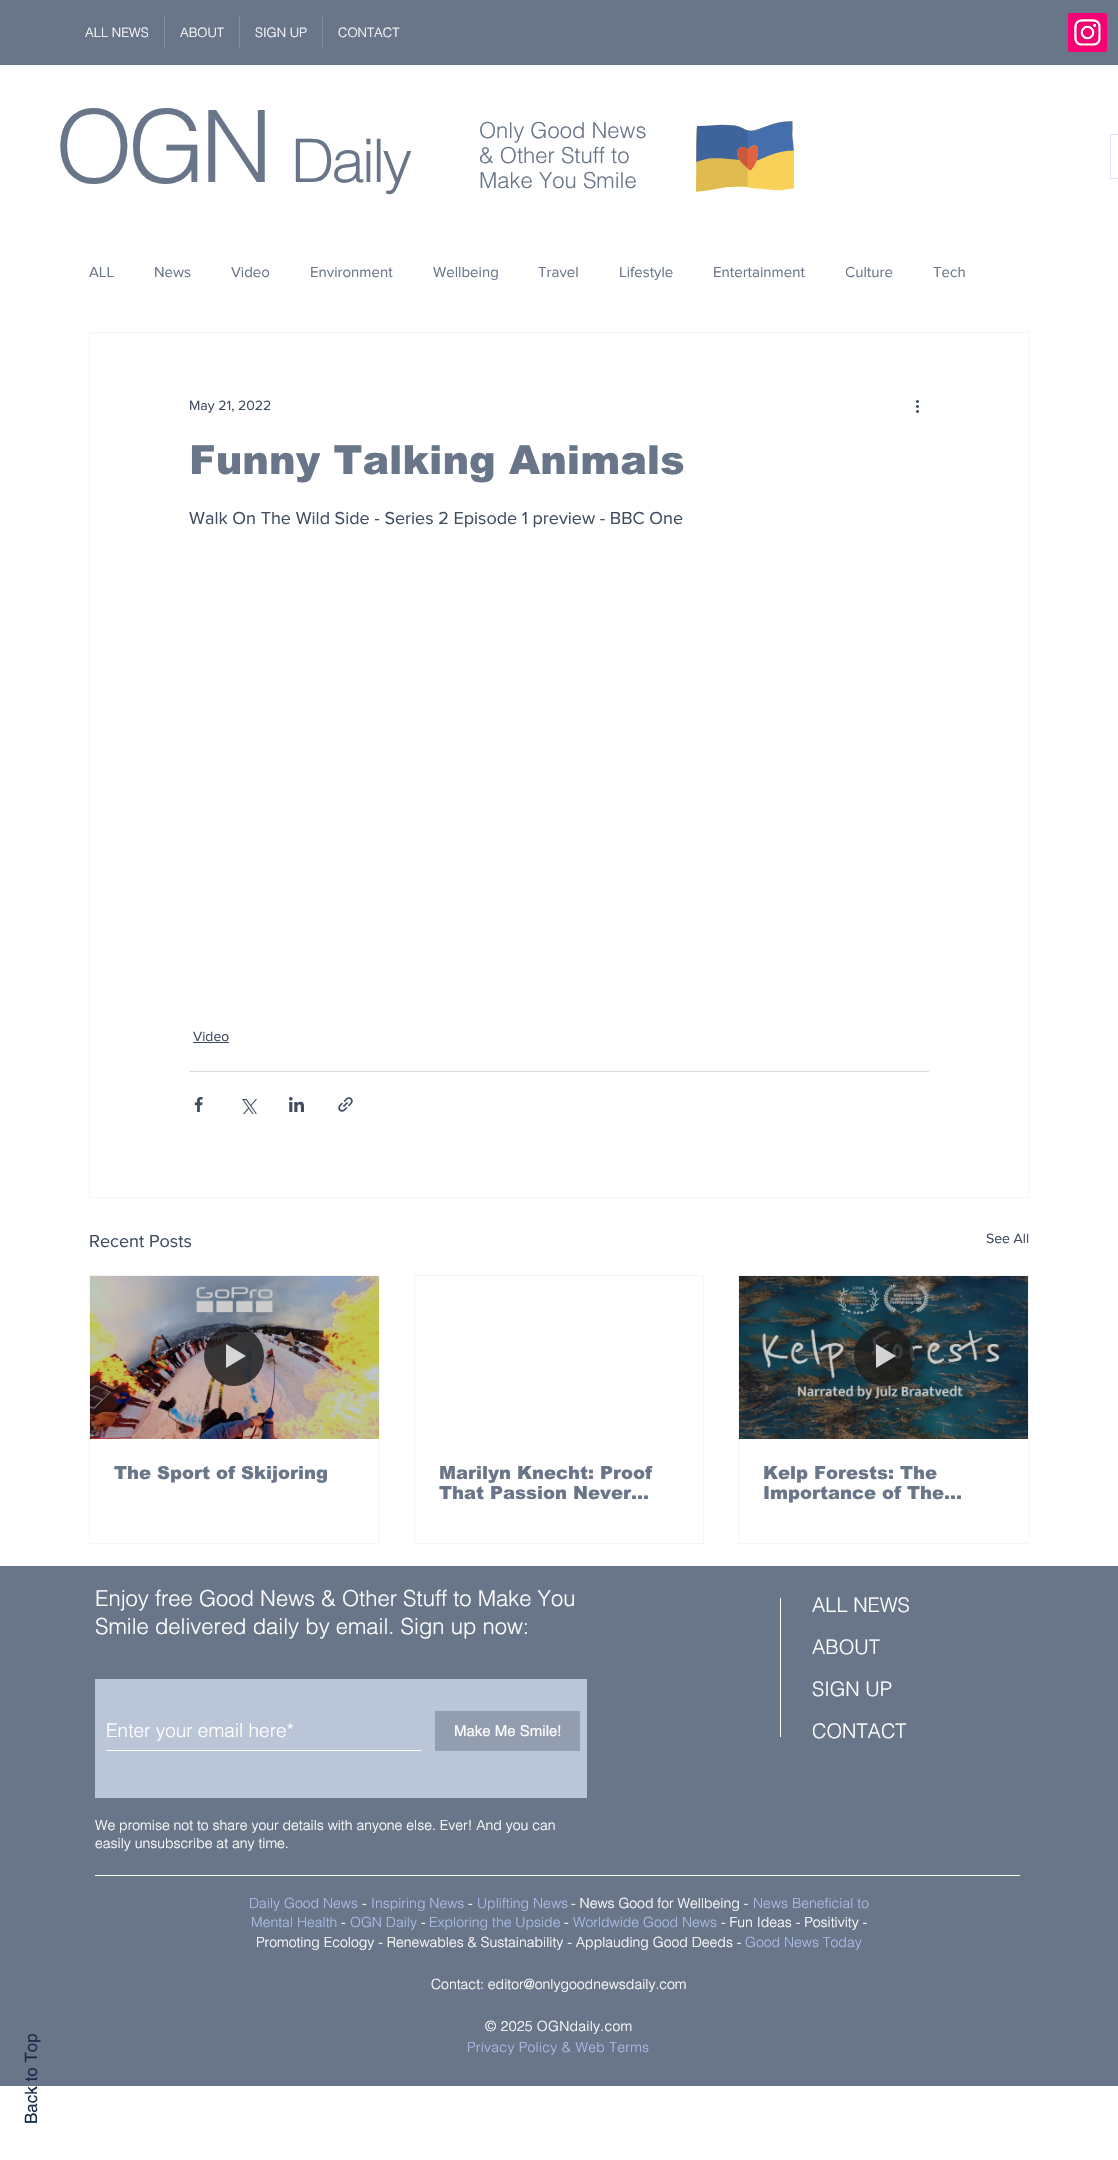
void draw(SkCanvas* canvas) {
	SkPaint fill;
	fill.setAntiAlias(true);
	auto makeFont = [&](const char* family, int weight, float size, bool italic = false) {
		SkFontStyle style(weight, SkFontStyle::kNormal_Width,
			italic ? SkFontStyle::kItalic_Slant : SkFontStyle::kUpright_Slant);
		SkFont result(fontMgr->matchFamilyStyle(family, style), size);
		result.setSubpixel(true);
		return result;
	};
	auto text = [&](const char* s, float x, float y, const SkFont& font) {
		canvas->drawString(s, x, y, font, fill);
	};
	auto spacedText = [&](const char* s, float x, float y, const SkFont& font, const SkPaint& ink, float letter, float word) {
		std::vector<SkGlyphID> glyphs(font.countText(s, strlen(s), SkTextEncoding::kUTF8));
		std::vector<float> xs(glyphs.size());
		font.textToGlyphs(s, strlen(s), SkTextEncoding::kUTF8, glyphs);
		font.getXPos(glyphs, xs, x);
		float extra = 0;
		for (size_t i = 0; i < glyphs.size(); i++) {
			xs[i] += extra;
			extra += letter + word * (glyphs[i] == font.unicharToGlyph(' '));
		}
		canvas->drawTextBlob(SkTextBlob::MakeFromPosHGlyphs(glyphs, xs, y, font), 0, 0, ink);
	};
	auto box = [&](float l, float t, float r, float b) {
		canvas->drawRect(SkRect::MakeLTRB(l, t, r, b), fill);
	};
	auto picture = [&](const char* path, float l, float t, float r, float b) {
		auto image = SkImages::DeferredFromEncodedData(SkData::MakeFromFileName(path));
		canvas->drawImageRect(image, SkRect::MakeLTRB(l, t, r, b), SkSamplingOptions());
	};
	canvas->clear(0xFFFFFFFF);
	fill.setColor(0xFF697689);
	box(0, 0, 1118, 65);
	fill.setColor(0xFF808B9B);
	box(164, 16, 165, 48);
	box(239, 16, 240, 48);
	box(322, 16, 323, 48);
	picture("image0.png", 1068, 13, 1107, 52);
	picture("image1.png", 696, 121, 794, 192);
	fill.setStyle(SkPaint::kStroke_Style);
	fill.setStrokeWidth(1);
	fill.setColor(0xFFDCE3F6);
	canvas->drawRect(SkRect::MakeLTRB(1110.5f, 134.5f, 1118.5f, 178.5f), fill);
	fill.setColor(0xFFF5F5F5);
	canvas->drawRect(SkRect::MakeLTRB(89.5f, 332.5f, 1028.5f, 1197.5f), fill);
	picture("image2.png", 916, 400, 919, 413);
	fill.setStyle(SkPaint::kFill_Style);
	fill.setColor(0xFF404D61);
	box(193, 1042, 229, 1043);
	fill.setColor(0xFFD9DBDF);
	box(189, 1071, 929, 1072);
	picture("image3.png", 194, 1097, 203, 1112);
	picture("image4.png", 242, 1099, 257, 1114);
	picture("image5.png", 289, 1097, 304, 1112);
	picture("image6.png", 338, 1097, 353, 1112);
	fill.setStyle(SkPaint::kStroke_Style);
	fill.setColor(0xFFF5F5F5);
	canvas->drawRect(SkRect::MakeLTRB(89.5f, 1275.5f, 379.5f, 1543.5f), fill);
	picture("image7.png", 90, 1276, 379, 1439);
	fill.setStyle(SkPaint::kFill_Style);
	fill.setColor(0xCC1A1A1A);
	canvas->drawCircle(234, 1356, 30, fill);
	fill.setColor(0xCCFFFFFF);
	canvas->drawPath(SkPathBuilder().moveTo(226, 1344).lineTo(226, 1368).lineTo(246, 1356).close().detach(), fill);
	fill.setStyle(SkPaint::kStroke_Style);
	fill.setColor(0xFFF5F5F5);
	canvas->drawRect(SkRect::MakeLTRB(414.5f, 1275.5f, 703.5f, 1543.5f), fill);
	canvas->drawRect(SkRect::MakeLTRB(738.5f, 1275.5f, 1028.5f, 1543.5f), fill);
	picture("image8.png", 739, 1276, 1028, 1439);
	fill.setStyle(SkPaint::kFill_Style);
	fill.setColor(0xCC1A1A1A);
	canvas->drawCircle(884, 1356, 30, fill);
	fill.setColor(0xCCFFFFFF);
	canvas->drawPath(SkPathBuilder().moveTo(876, 1344).lineTo(876, 1368).lineTo(896, 1356).close().detach(), fill);
	fill.setColor(0xFF697689);
	box(0, 1566, 1118, 2086);
	fill.setColor(0xFFFFFFFF);
	box(780, 1598, 781, 1737);
	fill.setColor(0xFFBAC6D8);
	box(95, 1679, 587, 1798);
	fill.setColor(0xFFFFFFFF);
	box(106, 1750, 421, 1751);
	fill.setColor(0xFF929EB0);
	box(435, 1711, 580, 1751);
	fill.setColor(0xFFFFFFFF);
	box(95, 1875, 1020, 1876);
	auto font1 = makeFont("helvetica", 300, 13);
	text("ALL NEWS", 85, 37, font1);
	text("ABOUT", 180, 37, font1);
	text("SIGN UP", 255, 37, font1);
	text("CONTACT", 338, 37, font1);
	auto font2 = makeFont("helvetica", 300, 100);
	fill.setColor(0xFF697689);
	spacedText("OGN", 55, 182, font2, fill, -5, 0);
	auto font3 = makeFont("helvetica", 300, 60);
	spacedText("Daily", 291, 182, font3, fill, -3, 0);
	auto font4 = makeFont("helvetica", 300, 22);
	text("Only Good News", 479, 138, font4);
	text("& Other Stuff to", 479, 163, font4);
	text("Make You Smile", 479, 188, font4);
	auto font5 = makeFont("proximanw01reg", 400, 15);
	text("ALL", 89, 277, font5);
	text("News", 154, 277, font5);
	text("Video", 231, 277, font5);
	text("Environment", 310, 277, font5);
	text("Wellbeing", 433, 277, font5);
	text("Travel", 538, 277, font5);
	text("Lifestyle", 619, 277, font5);
	text("Entertainment", 713, 277, font5);
	text("Culture", 845, 277, font5);
	text("Tech", 933, 277, font5);
	auto font6 = makeFont("proximanw01reg", 400, 14);
	fill.setColor(0xFF404D61);
	text("May 21, 2022", 189, 410, font6);
	auto font7 = makeFont("arial", 900, 40);
	fill.setColor(0xFF697689);
	text("Funny Talking Animals", 189, 474, font7);
	auto font8 = makeFont("proximanw01reg", 400, 18);
	fill.setColor(0xFF404D61);
	text("Walk On The Wild Side - Series 2 Episode 1 preview - BBC One", 189, 524, font8);
	text("Video", 193, 1041, font6);
	text("Recent Posts", 89, 1247, font8);
	text("See All", 986, 1243, font6);
	auto font9 = makeFont("arial", 900, 18);
	fill.setColor(0xFF697689);
	text("The Sport of Skijoring", 114, 1479, font9);
	text("Marilyn Knecht: Proof", 439, 1479, font9);
	text("That Passion Never…", 439, 1499, font9);
	text("Kelp Forests: The", 763, 1479, font9);
	text("Importance of The…", 763, 1499, font9);
	fill.setColor(0xFFFFFFFF);
	text("Enjoy free Good News & Other Stuff to Make You", 95, 1606, font4);
	text("Smile delivered daily by email. Sign up now:", 95, 1634, font4);
	auto font10 = makeFont("helvetica", 300, 20);
	text("ALL NEWS", 812, 1612, font10);
	text("ABOUT", 812, 1654, font10);
	text("SIGN UP", 812, 1696, font10);
	text("CONTACT", 812, 1738, font10);
	auto font11 = makeFont("helvetica", 300, 19);
	text("Enter your email here*", 106, 1737, font11);
	auto font12 = makeFont("helvetica", 400, 15);
	text("Make Me Smile!", 454, 1736, font12);
	auto font13 = makeFont("helvetica", 300, 14);
	text("We promise not to share your details with anyone else. Ever! And you can", 95, 1830, font13);
	text("easily unsubscribe at any time.", 95, 1848, font13);
	fill.setColor(0xFFADBEEA);
	text("Daily Good News", 249, 1908, font13);
	fill.setColor(0xFFFFFFFF);
	text("-", 362, 1908, font13);
	fill.setColor(0xFFADBEEA);
	text("Inspiring News", 371, 1908, font13);
	fill.setColor(0xFFFFFFFF);
	text("-", 468, 1908, font13);
	fill.setColor(0xFFADBEEA);
	text("Uplifting News", 477, 1908, font13);
	fill.setColor(0xFFFFFFFF);
	text("- News Good for Wellbeing -", 571, 1908, font13);
	fill.setColor(0xFFADBEEA);
	text("News Beneficial to", 753, 1908, font13);
	text("Mental Health", 251, 1927, font13);
	fill.setColor(0xFFFFFFFF);
	text("-", 341, 1927, font13);
	fill.setColor(0xFFADBEEA);
	text("OGN Daily", 350, 1927, font13);
	fill.setColor(0xFFFFFFFF);
	text("-", 421, 1927, font13);
	fill.setColor(0xFFADBEEA);
	text("Exploring the Upside", 429, 1927, font13);
	fill.setColor(0xFFFFFFFF);
	text("-", 564, 1927, font13);
	fill.setColor(0xFFADBEEA);
	text("Worldwide Good News", 573, 1927, font13);
	fill.setColor(0xFFFFFFFF);
	text("- Fun Ideas - Positivity -", 721, 1927, font13);
	text("Promoting Ecology - Renewables & Sustainability - Applauding Good Deeds -", 256, 1947, font13);
	fill.setColor(0xFFADBEEA);
	text("Good News Today", 745, 1947, font13);
	fill.setColor(0xFFFFFFFF);
	text("Contact: editor@onlygoodnewsdaily.com", 431, 1989, font13);
	spacedText("© 2025 OGNdaily.com", 485, 2031, font13, fill, 0.25f, 0);
	fill.setColor(0xFFADBEEA);
	spacedText("Privacy Policy & Web Terms", 467, 2052, font13, fill, 0.25f, 0);
	auto font14 = makeFont("helvetica", 400, 17);
	fill.setColor(0xFF172A47);
	canvas->save();
	canvas->rotate(-90, 37, 2124);
	text("Back to Top", 37, 2124, font14);
	canvas->restore();
}
